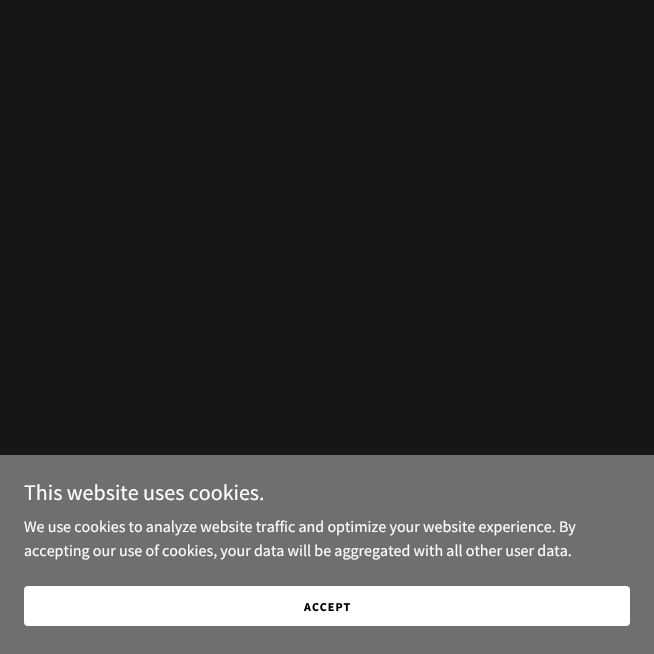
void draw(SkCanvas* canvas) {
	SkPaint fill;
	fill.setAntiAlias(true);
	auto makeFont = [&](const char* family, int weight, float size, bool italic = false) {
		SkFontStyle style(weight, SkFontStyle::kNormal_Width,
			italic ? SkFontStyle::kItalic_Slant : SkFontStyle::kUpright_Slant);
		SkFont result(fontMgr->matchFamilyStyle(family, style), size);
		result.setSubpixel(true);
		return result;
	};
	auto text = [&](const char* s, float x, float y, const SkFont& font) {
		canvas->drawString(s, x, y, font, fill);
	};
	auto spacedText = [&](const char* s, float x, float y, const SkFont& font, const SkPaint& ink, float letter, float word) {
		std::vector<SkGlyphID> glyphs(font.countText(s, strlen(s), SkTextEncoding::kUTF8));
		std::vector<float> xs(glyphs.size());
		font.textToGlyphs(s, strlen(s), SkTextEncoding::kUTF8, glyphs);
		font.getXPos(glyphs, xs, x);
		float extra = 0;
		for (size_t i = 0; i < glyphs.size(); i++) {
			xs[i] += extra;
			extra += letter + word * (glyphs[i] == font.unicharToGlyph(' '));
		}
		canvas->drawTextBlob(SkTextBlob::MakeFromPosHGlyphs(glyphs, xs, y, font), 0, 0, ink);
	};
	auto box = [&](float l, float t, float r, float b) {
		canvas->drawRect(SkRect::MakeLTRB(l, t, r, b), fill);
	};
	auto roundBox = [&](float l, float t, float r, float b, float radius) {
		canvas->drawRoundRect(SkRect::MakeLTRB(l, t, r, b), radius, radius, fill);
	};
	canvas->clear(0xFF161616);
	fill.setColor(0xFF6F6F6F);
	box(0, 455, 654, 654);
	fill.setColor(0xFFFFFFFF);
	roundBox(24, 586, 630, 626, 4);
	auto font1 = makeFont("Source Sans Pro", 400, 22);
	text("This website uses cookies.", 24, 500, font1);
	auto font2 = makeFont("Source Sans Pro", 400, 16);
	text("We use cookies to analyze website traffic and optimize your website experience. By", 24, 532, font2);
	text("accepting our use of cookies, your data will be aggregated with all other user data.", 24, 556, font2);
	auto font3 = makeFont("Source Sans Pro", 700, 12);
	fill.setColor(0xFF000000);
	spacedText("ACCEPT", 304, 611, font3, fill, 1, 0);
}
